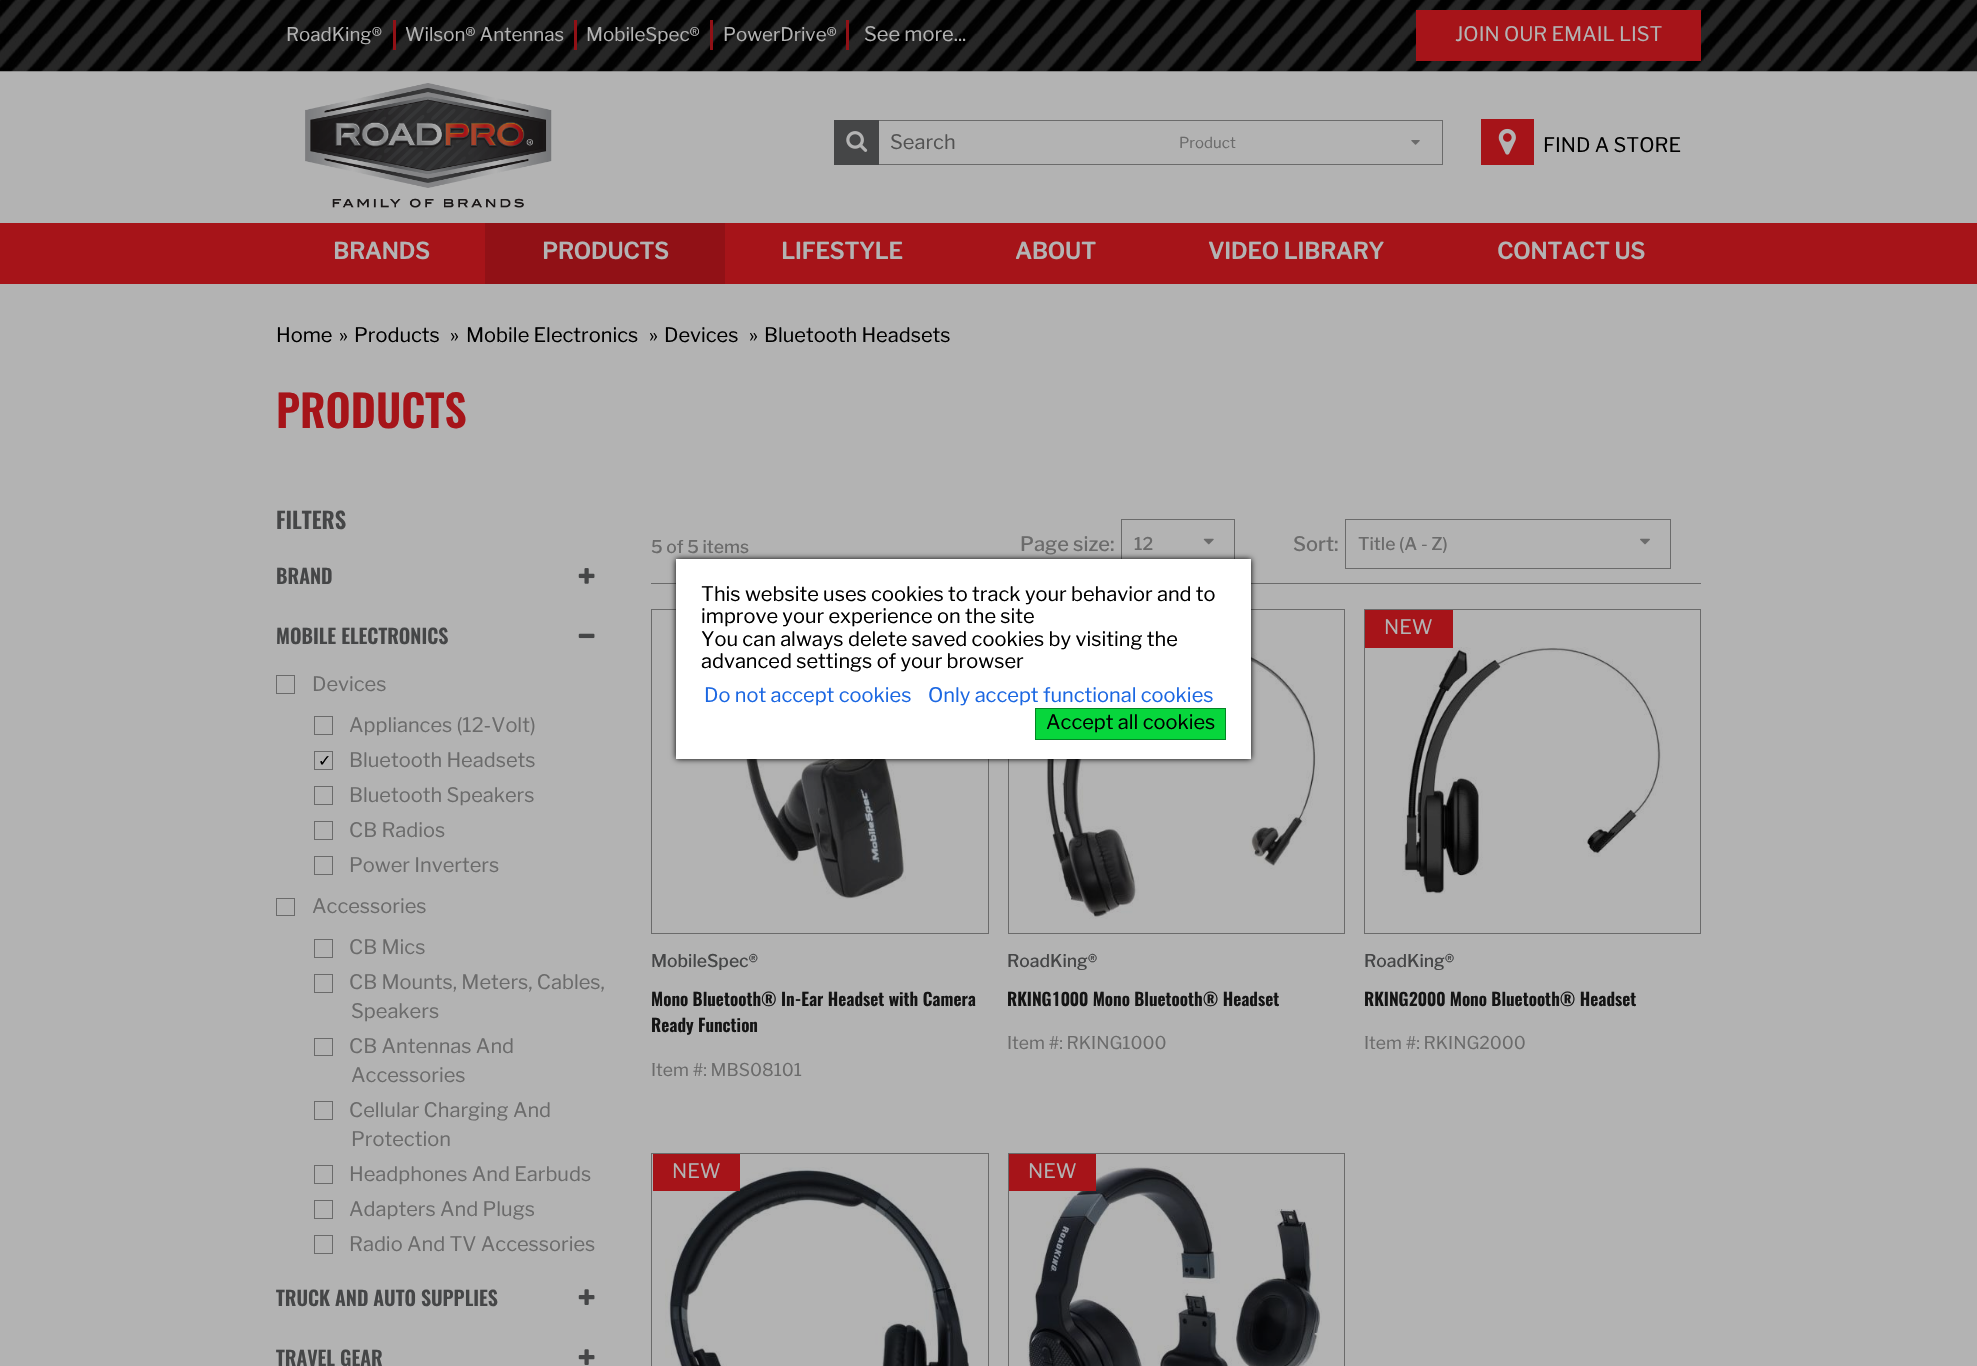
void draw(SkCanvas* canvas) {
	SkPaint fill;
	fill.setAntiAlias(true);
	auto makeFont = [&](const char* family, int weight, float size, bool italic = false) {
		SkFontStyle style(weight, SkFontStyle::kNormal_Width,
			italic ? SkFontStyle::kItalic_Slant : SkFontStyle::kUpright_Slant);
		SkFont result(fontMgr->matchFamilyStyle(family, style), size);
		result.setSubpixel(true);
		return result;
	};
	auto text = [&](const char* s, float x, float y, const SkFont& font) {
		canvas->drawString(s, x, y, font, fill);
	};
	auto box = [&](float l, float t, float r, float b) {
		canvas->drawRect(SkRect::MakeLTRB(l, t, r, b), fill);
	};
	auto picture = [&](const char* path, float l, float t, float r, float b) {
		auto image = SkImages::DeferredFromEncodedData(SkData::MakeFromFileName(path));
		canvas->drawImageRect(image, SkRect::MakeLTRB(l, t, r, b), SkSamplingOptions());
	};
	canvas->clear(0xFFB3B3B3);
	picture("image0.png", 0, 0, 1977, 72);
	fill.setColor(0xFF911116);
	box(393, 20, 396, 50);
	box(574, 20, 577, 50);
	box(710, 20, 713, 50);
	box(846, 20, 849, 50);
	fill.setColor(0xFFA61419);
	box(1416, 10, 1701, 61);
	picture("image1.png", 305, 83, 552, 208);
	fill.setStyle(SkPaint::kStroke_Style);
	fill.setStrokeWidth(1);
	fill.setColor(0xFF6B6B6B);
	canvas->drawRect(SkRect::MakeLTRB(876.5f, 120.5f, 1442.5f, 164.5f), fill);
	fill.setStyle(SkPaint::kFill_Style);
	fill.setColor(0xFF454647);
	box(834, 120, 879, 165);
	picture("image2.png", 846, 131, 868, 152);
	picture("image3.png", 1411, 140, 1420, 145);
	fill.setColor(0xFFA61419);
	box(1481, 119, 1534, 165);
	picture("image4.png", 1498, 128, 1516, 155);
	box(0, 223, 1977, 284);
	fill.setColor(0xFF911116);
	box(485, 223, 725, 284);
	picture("image5.png", 578, 568, 595, 584);
	picture("image6.png", 578, 633, 595, 639);
	fill.setStyle(SkPaint::kStroke_Style);
	fill.setColor(0xFF6B6B6B);
	canvas->drawRect(SkRect::MakeLTRB(276.5f, 675.5f, 294.5f, 693.5f), fill);
	canvas->drawRect(SkRect::MakeLTRB(314.5f, 716.5f, 332.5f, 734.5f), fill);
	canvas->drawRect(SkRect::MakeLTRB(314.5f, 751.5f, 332.5f, 769.5f), fill);
	canvas->drawRect(SkRect::MakeLTRB(314.5f, 786.5f, 332.5f, 804.5f), fill);
	canvas->drawRect(SkRect::MakeLTRB(314.5f, 821.5f, 332.5f, 839.5f), fill);
	canvas->drawRect(SkRect::MakeLTRB(314.5f, 856.5f, 332.5f, 874.5f), fill);
	canvas->drawRect(SkRect::MakeLTRB(276.5f, 898.5f, 294.5f, 915.5f), fill);
	canvas->drawRect(SkRect::MakeLTRB(314.5f, 939.5f, 332.5f, 957.5f), fill);
	canvas->drawRect(SkRect::MakeLTRB(314.5f, 974.5f, 332.5f, 992.5f), fill);
	canvas->drawRect(SkRect::MakeLTRB(314.5f, 1038.5f, 332.5f, 1055.5f), fill);
	canvas->drawRect(SkRect::MakeLTRB(314.5f, 1101.5f, 332.5f, 1119.5f), fill);
	canvas->drawRect(SkRect::MakeLTRB(314.5f, 1165.5f, 332.5f, 1183.5f), fill);
	canvas->drawRect(SkRect::MakeLTRB(314.5f, 1200.5f, 332.5f, 1218.5f), fill);
	canvas->drawRect(SkRect::MakeLTRB(314.5f, 1235.5f, 332.5f, 1253.5f), fill);
	picture("image7.png", 578, 1289, 595, 1305);
	picture("image7.png", 578, 1349, 595, 1365);
	fill.setStyle(SkPaint::kFill_Style);
	box(651, 583, 1701, 584);
	fill.setStyle(SkPaint::kStroke_Style);
	canvas->drawRect(SkRect::MakeLTRB(1121.5f, 519.5f, 1234.5f, 568.5f), fill);
	picture("image8.png", 1203, 538, 1214, 545);
	canvas->drawRect(SkRect::MakeLTRB(1345.5f, 519.5f, 1670.5f, 568.5f), fill);
	picture("image9.png", 1640, 538, 1650, 545);
	canvas->drawRect(SkRect::MakeLTRB(651.5f, 609.5f, 988.5f, 933.5f), fill);
	picture("image10.png", 740, 759, 906, 899);
	canvas->drawRect(SkRect::MakeLTRB(1008.5f, 609.5f, 1344.5f, 933.5f), fill);
	picture("image11.png", 1046, 623, 1319, 919);
	canvas->drawRect(SkRect::MakeLTRB(1364.5f, 609.5f, 1700.5f, 933.5f), fill);
	picture("image12.png", 1402, 647, 1663, 894);
	fill.setStyle(SkPaint::kFill_Style);
	fill.setColor(0xFFA61419);
	box(1365, 610, 1453, 648);
	fill.setStyle(SkPaint::kStroke_Style);
	fill.setColor(0xFF6B6B6B);
	canvas->drawRect(SkRect::MakeLTRB(651.5f, 1153.5f, 988.5f, 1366.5f), fill);
	picture("image13.png", 665, 1167, 970, 1366);
	fill.setStyle(SkPaint::kFill_Style);
	fill.setColor(0xFFA61419);
	box(653, 1154, 740, 1191);
	fill.setStyle(SkPaint::kStroke_Style);
	fill.setColor(0xFF6B6B6B);
	canvas->drawRect(SkRect::MakeLTRB(1008.5f, 1153.5f, 1344.5f, 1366.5f), fill);
	picture("image14.png", 1027, 1166, 1322, 1366);
	fill.setStyle(SkPaint::kFill_Style);
	fill.setColor(0xFFA61419);
	box(1009, 1154, 1096, 1191);
	fill.setColor(0xFF000000);
	fill.setMaskFilter(SkMaskFilter::MakeBlur(kNormal_SkBlurStyle, 3));
	canvas->drawRect(SkRect::MakeLTRB(676, 559, 1251, 759), fill);
	fill.setMaskFilter(nullptr);
	fill.setColor(0xFFFFFFFF);
	box(676, 559, 1251, 759);
	fill.setColor(0xFF07D63C);
	canvas->drawRect(SkRect::MakeLTRB(1035.5f, 708.5f, 1225.5f, 739.5f), fill);
	fill.setStyle(SkPaint::kStroke_Style);
	fill.setColor(0xFF048425);
	canvas->drawRect(SkRect::MakeLTRB(1035.5f, 708.5f, 1225.5f, 739.5f), fill);
	auto font1 = makeFont("Libre Franklin", 400, 18.75f);
	fill.setStyle(SkPaint::kFill_Style);
	fill.setColor(0xFFB3B3B3);
	text("RoadKing®", 286, 41, font1);
	text("Wilson® Antennas", 405, 41, font1);
	text("MobileSpec®", 586, 41, font1);
	text("PowerDrive®", 723, 41, font1);
	auto font2 = makeFont("Libre Franklin", 400, 20);
	text("See more...", 864, 41, font2);
	text("JOIN OUR EMAIL LIST", 1455, 41, font2);
	fill.setColor(0xFF525252);
	text("Search", 890, 149, font2);
	auto font3 = makeFont("Libre Franklin", 400, 15);
	fill.setColor(0xFF6B6B6B);
	text("Product", 1179, 148, font3);
	fill.setColor(0xFF000000);
	text("FIND A STORE", 1543, 152, font2);
	auto font4 = makeFont("Libre Franklin", 700, 22.5f);
	fill.setColor(0xFFB3B3B3);
	text("BRANDS", 333, 259, font4);
	text("PRODUCTS", 542, 259, font4);
	text("LIFESTYLE", 781, 259, font4);
	text("ABOUT", 1015, 259, font4);
	text("VIDEO LIBRARY", 1208, 259, font4);
	text("CONTACT US", 1497, 259, font4);
	fill.setColor(0xFF000000);
	text("Home", 276, 342, font2);
	text("»", 339, 342, font2);
	text("Products", 354, 342, font2);
	text("»", 450, 342, font2);
	text("Mobile Electronics", 466, 342, font2);
	text("»", 649, 342, font2);
	text("Devices", 664, 342, font2);
	text("»", 749, 342, font2);
	text("Bluetooth Headsets", 764, 342, font2);
	auto font5 = makeFont("Oswald", 600, 43.75f);
	fill.setColor(0xFFA61419);
	text("PRODUCTS", 276, 428, font5);
	auto font6 = makeFont("Oswald", 600, 22.5f);
	fill.setColor(0xFF454647);
	text("FILTERS", 276, 529, font6);
	auto font7 = makeFont("Oswald", 600, 20);
	text("BRAND", 276, 584, font7);
	text("MOBILE ELECTRONICS", 276, 644, font7);
	fill.setColor(0xFF6B6B6B);
	text("Devices", 312, 691, font2);
	text("Appliances (12-Volt)", 349, 732, font2);
	auto font8 = makeFont("DejaVu Sans", 400, 16);
	fill.setColor(0xFF000000);
	text("✓", 318, 766, font8);
	fill.setColor(0xFF6B6B6B);
	text("Bluetooth Headsets", 349, 767, font2);
	text("Bluetooth Speakers", 349, 802, font2);
	text("CB Radios", 349, 837, font2);
	text("Power Inverters", 349, 872, font2);
	text("Accessories", 312, 913, font2);
	text("CB Mics", 349, 954, font2);
	text("CB Mounts, Meters, Cables,", 349, 989, font2);
	text("Speakers", 351, 1018, font2);
	text("CB Antennas And", 349, 1053, font2);
	text("Accessories", 351, 1082, font2);
	text("Cellular Charging And", 349, 1117, font2);
	text("Protection", 351, 1146, font2);
	text("Headphones And Earbuds", 349, 1181, font2);
	text("Adapters And Plugs", 349, 1216, font2);
	text("Radio And TV Accessories", 349, 1251, font2);
	fill.setColor(0xFF454647);
	text("TRUCK AND AUTO SUPPLIES", 276, 1306, font7);
	text("TRAVEL GEAR", 276, 1366, font7);
	auto font9 = makeFont("Libre Franklin", 500, 17.5f);
	fill.setColor(0xFF6B6B6B);
	text("5 of 5 items", 651, 553, font9);
	auto font10 = makeFont("Libre Franklin", 500, 20);
	text("Page size:", 1020, 551, font10);
	text("12", 1134, 550, font9);
	text("Sort:", 1293, 551, font10);
	text("Title (A - Z)", 1358, 550, font9);
	fill.setColor(0xFF454647);
	text("MobileSpec®", 651, 967, font9);
	auto font11 = makeFont("Oswald", 600, 17.5f);
	fill.setColor(0xFF141414);
	text("Mono Bluetooth® In-Ear Headset with Camera", 651, 1006, font11);
	text("Ready Function", 651, 1032, font11);
	auto font12 = makeFont("Libre Franklin", 400, 17.5f);
	fill.setColor(0xFF6B6B6B);
	text("Item #: MBS08101", 651, 1076, font12);
	fill.setColor(0xFF454647);
	text("RoadKing®", 1007, 967, font9);
	fill.setColor(0xFF141414);
	text("RKING1000 Mono Bluetooth® Headset", 1007, 1006, font11);
	fill.setColor(0xFF6B6B6B);
	text("Item #: RKING1000", 1007, 1049, font12);
	fill.setColor(0xFFB3B3B3);
	text("NEW", 1384, 634, font2);
	fill.setColor(0xFF454647);
	text("RoadKing®", 1364, 967, font9);
	fill.setColor(0xFF141414);
	text("RKING2000 Mono Bluetooth® Headset", 1364, 1006, font11);
	fill.setColor(0xFF6B6B6B);
	text("Item #: RKING2000", 1364, 1049, font12);
	fill.setColor(0xFFB3B3B3);
	text("NEW", 672, 1178, font2);
	text("NEW", 1028, 1178, font2);
	fill.setColor(0xFF000000);
	text("This website uses cookies to track your behavior and to", 701, 601, font2);
	text("improve your experience on the site", 701, 623, font2);
	text("You can always delete saved cookies by visiting the", 701, 646, font2);
	text("advanced settings of your browser", 701, 668, font2);
	fill.setColor(0xFF1B67E2);
	text("Do not accept cookies", 704, 702, font2);
	text("Only accept functional cookies", 928, 702, font2);
	fill.setColor(0xFF000000);
	text("Accept all cookies", 1046, 729, font2);
}
